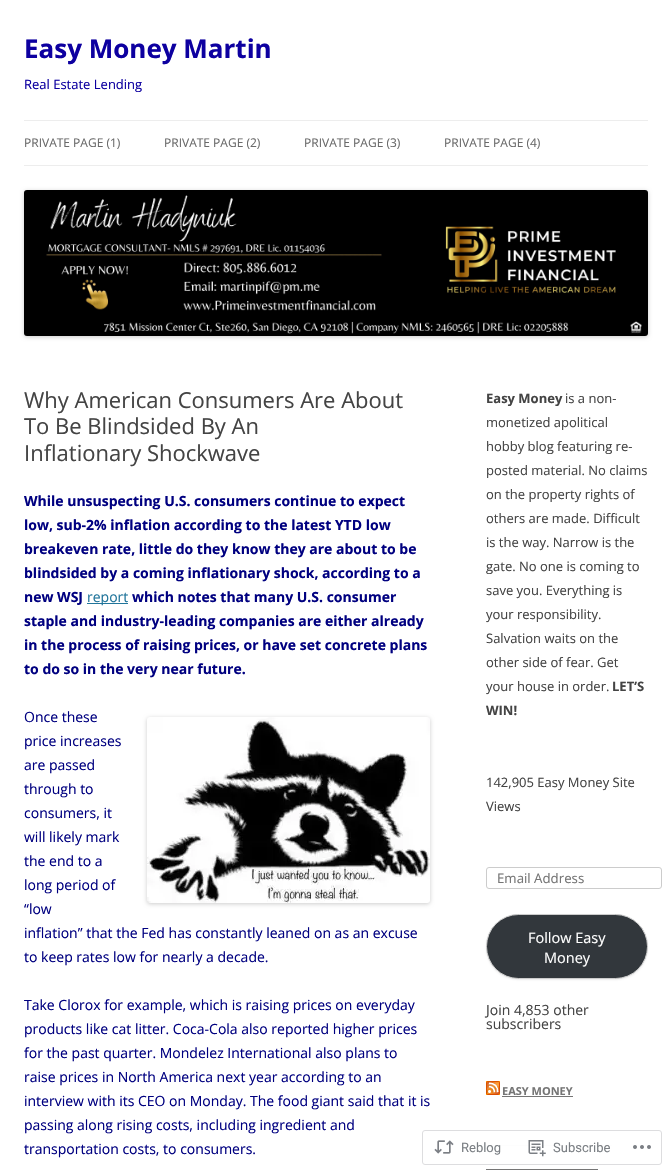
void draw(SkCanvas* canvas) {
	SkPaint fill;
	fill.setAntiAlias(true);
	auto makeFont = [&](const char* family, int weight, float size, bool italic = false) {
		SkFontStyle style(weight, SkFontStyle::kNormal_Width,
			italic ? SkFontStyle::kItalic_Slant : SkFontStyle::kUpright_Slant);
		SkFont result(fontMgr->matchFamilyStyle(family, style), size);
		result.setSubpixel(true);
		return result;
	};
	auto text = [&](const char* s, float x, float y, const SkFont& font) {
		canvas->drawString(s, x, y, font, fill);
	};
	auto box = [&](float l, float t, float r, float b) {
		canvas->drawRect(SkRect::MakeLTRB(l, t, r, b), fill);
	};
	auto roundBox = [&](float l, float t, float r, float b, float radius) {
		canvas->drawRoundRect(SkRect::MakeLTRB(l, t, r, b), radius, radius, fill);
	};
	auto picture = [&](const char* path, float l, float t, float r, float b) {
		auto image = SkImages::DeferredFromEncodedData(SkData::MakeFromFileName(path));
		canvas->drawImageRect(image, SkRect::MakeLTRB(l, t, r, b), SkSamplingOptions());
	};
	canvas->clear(0xFFFFFFFF);
	fill.setColor(0xFFEDEDED);
	box(24, 120, 648, 121);
	box(24, 165, 648, 166);
	fill.setColor(0x33000000);
	fill.setMaskFilter(SkMaskFilter::MakeBlur(kNormal_SkBlurStyle, 2));
	canvas->drawRoundRect(SkRect::MakeLTRB(24, 191, 648, 337), 3, 3, fill);
	fill.setMaskFilter(nullptr);
	picture("image0.png", 24, 190, 648, 336);
	fill.setColor(0xFF21759B);
	box(87, 603, 128, 604);
	fill.setColor(0x33000000);
	fill.setMaskFilter(SkMaskFilter::MakeBlur(kNormal_SkBlurStyle, 2));
	canvas->drawRoundRect(SkRect::MakeLTRB(147, 718, 430, 904), 3, 3, fill);
	fill.setMaskFilter(nullptr);
	picture("image1.png", 147, 717, 430, 903);
	fill.setStyle(SkPaint::kStroke_Style);
	fill.setStrokeWidth(1);
	fill.setColor(0xFFCCCCCC);
	canvas->drawRoundRect(SkRect::MakeLTRB(486.5f, 867.5f, 661.5f, 888.5f), 2.5f, 2.5f, fill);
	fill.setStyle(SkPaint::kFill_Style);
	fill.setColor(0x1A404040);
	fill.setMaskFilter(SkMaskFilter::MakeBlur(kNormal_SkBlurStyle, 1));
	canvas->drawRoundRect(SkRect::MakeLTRB(486, 915, 648, 980), 32.5f, 32.5f, fill);
	fill.setMaskFilter(nullptr);
	fill.setColor(0xFF32373C);
	canvas->drawRoundRect(SkRect::MakeLTRB(486.5f, 914.5f, 647.5f, 978.5f), 32, 32, fill);
	fill.setStyle(SkPaint::kStroke_Style);
	fill.setColor(0xFFCCCCCC);
	canvas->drawRoundRect(SkRect::MakeLTRB(486.5f, 914.5f, 647.5f, 978.5f), 32, 32, fill);
	fill.setStyle(SkPaint::kFill_Style);
	fill.setColor(0xFFFFA500);
	box(486, 1081, 500, 1095);
	picture("image2.png", 486, 1081, 500, 1095);
	fill.setColor(0xFF757575);
	box(502, 1096, 573, 1097);
	box(486, 1145, 612, 1146);
	box(486, 1169, 598, 1170);
	fill.setColor(0xFAFFFFFF);
	roundBox(422, 1130, 662, 1165, 3);
	fill.setStyle(SkPaint::kStroke_Style);
	fill.setColor(0xFADCDCDE);
	canvas->drawRoundRect(SkRect::MakeLTRB(422.5f, 1130.5f, 661.5f, 1164.5f), 2.5f, 2.5f, fill);
	picture("image3.png", 434, 1140, 454, 1154);
	picture("image4.png", 528, 1140, 546, 1157);
	picture("image5.png", 633, 1145, 651, 1149);
	auto font1 = makeFont("Open Sans", 700, 26);
	fill.setStyle(SkPaint::kFill_Style);
	fill.setColor(0xFF0D00A0);
	text("Easy Money Martin", 24, 58, font1);
	auto font2 = makeFont("Open Sans", 400, 13);
	text("Real Estate Lending", 24, 89, font2);
	auto font3 = makeFont("Open Sans", 400, 12);
	fill.setColor(0xFF6A6A6A);
	text("PRIVATE PAGE (1)", 24, 147, font3);
	text("PRIVATE PAGE (2)", 164, 147, font3);
	text("PRIVATE PAGE (3)", 304, 147, font3);
	text("PRIVATE PAGE (4)", 444, 147, font3);
	auto font4 = makeFont("Open Sans", 400, 22);
	fill.setColor(0xFF444444);
	text("Why American Consumers Are About", 24, 408, font4);
	text("To Be Blindsided By An", 24, 434, font4);
	text("Inflationary Shockwave", 24, 461, font4);
	auto font5 = makeFont("Open Sans", 700, 14);
	fill.setColor(0xFF000080);
	text("While unsuspecting U.S. consumers continue to expect", 24, 506, font5);
	text("low, sub-2% inflation according to the latest YTD low", 24, 530, font5);
	text("breakeven rate, little do they know they are about to be", 24, 554, font5);
	text("blindsided by a coming inflationary shock, according to a", 24, 578, font5);
	text("new WSJ", 24, 602, font5);
	auto font6 = makeFont("Open Sans", 400, 14);
	fill.setColor(0xFF21759B);
	text("report", 87, 602, font6);
	fill.setColor(0xFF000080);
	text("which notes that many U.S. consumer", 132, 602, font5);
	text("staple and industry-leading companies are either already", 24, 626, font5);
	text("in the process of raising prices, or have set concrete plans", 24, 650, font5);
	text("to do so in the very near future.", 24, 674, font5);
	text("Once these", 24, 722, font6);
	text("price increases", 24, 746, font6);
	text("are passed", 24, 770, font6);
	text("through to", 24, 794, font6);
	text("consumers, it", 24, 818, font6);
	text("will likely mark", 24, 842, font6);
	text("the end to a", 24, 866, font6);
	text("long period of", 24, 890, font6);
	text("“low", 24, 914, font6);
	text("inflation” that the Fed has constantly leaned on as an excuse", 24, 938, font6);
	text("to keep rates low for nearly a decade.", 24, 962, font6);
	text("Take Clorox for example, which is raising prices on everyday", 24, 1010, font6);
	text("products like cat litter. Coca-Cola also reported higher prices", 24, 1034, font6);
	text("for the past quarter. Mondelez International also plans to", 24, 1058, font6);
	text("raise prices in North America next year according to an", 24, 1082, font6);
	text("interview with its CEO on Monday. The food giant said that it is", 24, 1106, font6);
	text("passing along rising costs, including ingredient and", 24, 1130, font6);
	text("transportation costs, to consumers.", 24, 1154, font6);
	auto font7 = makeFont("Open Sans", 700, 13);
	fill.setColor(0xFF444444);
	text("Easy Money", 486, 403, font7);
	text("is a non-", 565, 403, font2);
	text("monetized apolitical", 486, 427, font2);
	text("hobby blog featuring re-", 486, 451, font2);
	text("posted material. No claims", 486, 475, font2);
	text("on the property rights of", 486, 499, font2);
	text("others are made. Difficult", 486, 523, font2);
	text("is the way. Narrow is the", 486, 547, font2);
	text("gate. No one is coming to", 486, 571, font2);
	text("save you. Everything is", 486, 595, font2);
	text("your responsibility.", 486, 619, font2);
	text("Salvation waits on the", 486, 643, font2);
	text("other side of fear. Get", 486, 667, font2);
	text("your house in order.", 486, 691, font2);
	text("LET’S", 612, 691, font7);
	text("WIN!", 486, 715, font7);
	text("142,905 Easy Money Site", 486, 787, font2);
	text("Views", 486, 811, font2);
	auto font8 = makeFont("Open Sans", 400, 13.25f);
	fill.setColor(0xFF757575);
	text("Email Address", 497, 883, font8);
	auto font9 = makeFont("Open Sans", 400, 14.5f);
	fill.setColor(0xFFFFFFFF);
	text("Follow Easy", 528, 943, font9);
	text("Money", 544, 963, font9);
	fill.setColor(0xFF444444);
	text("Join 4,853 other", 486, 1015, font6);
	text("subscribers", 486, 1029, font6);
	auto font10 = makeFont("Open Sans", 700, 11);
	fill.setColor(0xFF757575);
	text("EASY MONEY", 502, 1095, font10);
	auto font11 = makeFont("Roboto", 400, 13);
	fill.setColor(0xFF7B7F84);
	text("Reblog", 461, 1152, font11);
	text("Subscribe", 553, 1152, font11);
}
